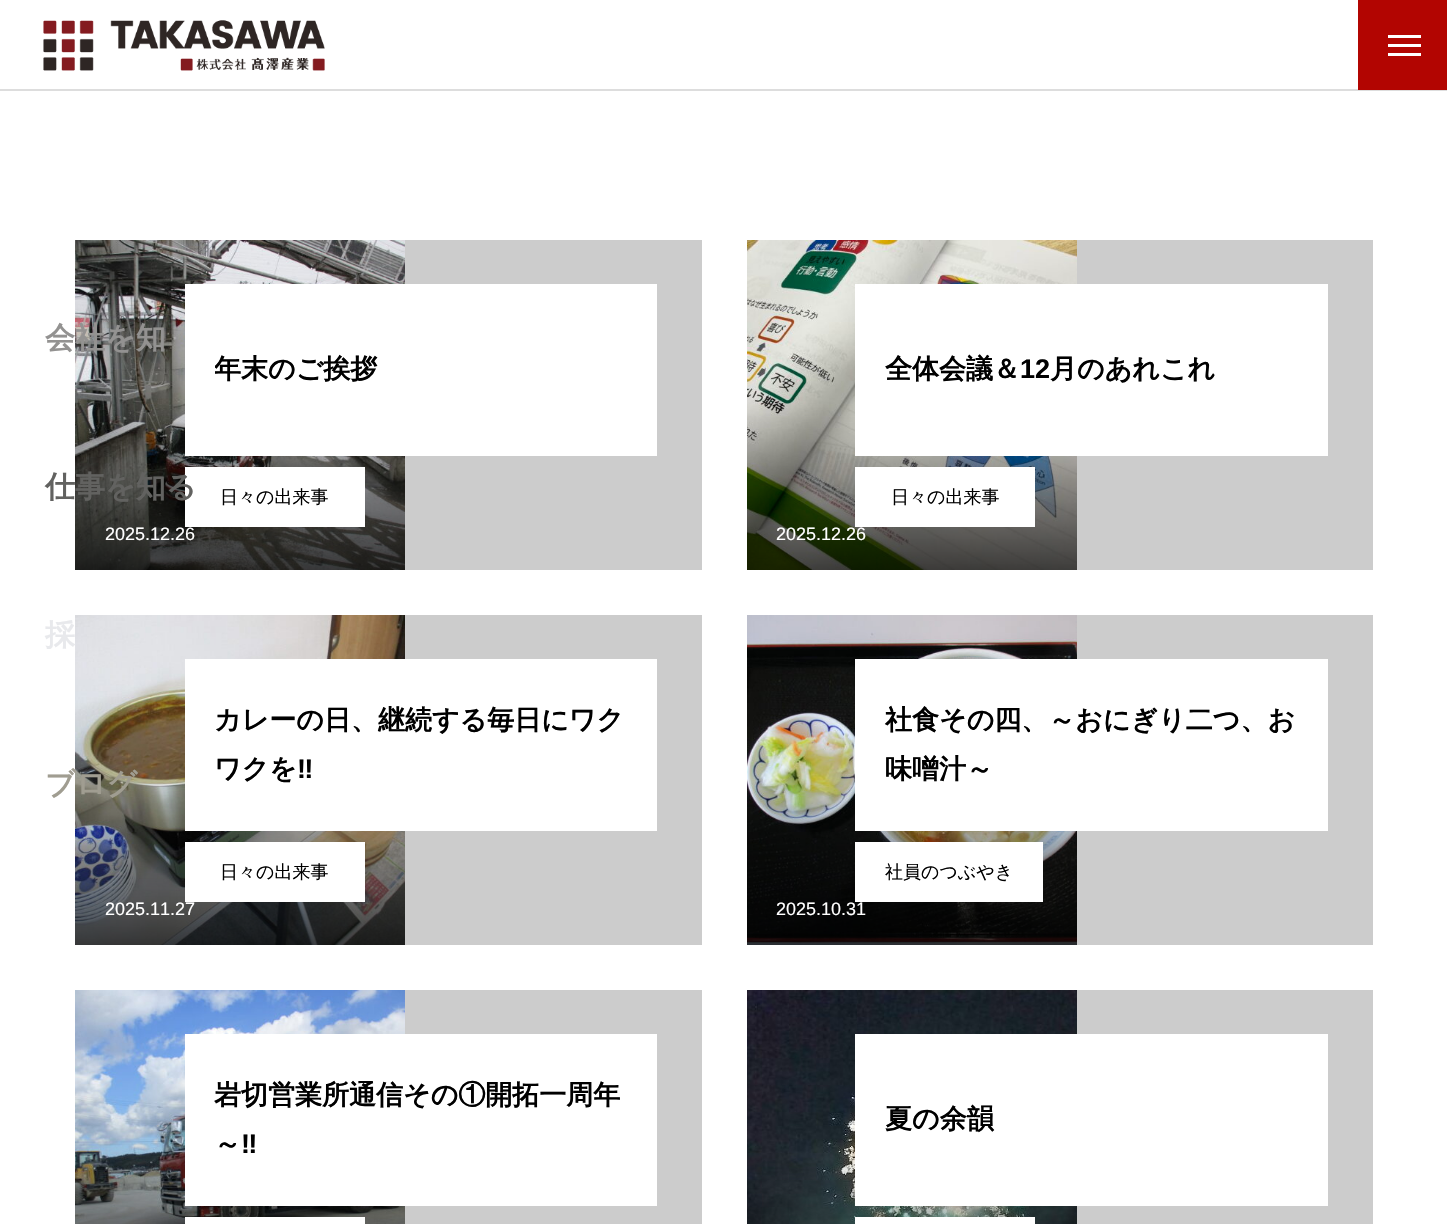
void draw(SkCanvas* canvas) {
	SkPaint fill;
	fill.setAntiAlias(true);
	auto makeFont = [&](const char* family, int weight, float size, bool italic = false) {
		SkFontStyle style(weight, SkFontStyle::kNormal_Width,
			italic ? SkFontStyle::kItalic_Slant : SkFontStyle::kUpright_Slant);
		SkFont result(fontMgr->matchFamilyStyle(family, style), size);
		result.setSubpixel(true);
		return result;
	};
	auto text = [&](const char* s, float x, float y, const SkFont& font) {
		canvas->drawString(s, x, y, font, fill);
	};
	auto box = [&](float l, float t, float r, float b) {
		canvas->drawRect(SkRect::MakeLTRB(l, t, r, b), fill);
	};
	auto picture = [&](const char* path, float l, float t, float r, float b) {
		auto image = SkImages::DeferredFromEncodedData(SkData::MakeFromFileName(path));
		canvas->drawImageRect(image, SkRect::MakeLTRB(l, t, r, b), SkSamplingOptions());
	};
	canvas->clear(0xFFFFFFFF);
	picture("image0.png", 43, 20, 325, 71);
	fill.setColor(0xFFDDDDDD);
	box(0, 89, 1447, 91);
	fill.setColor(0xFFB20501);
	box(1358, 0, 1447, 90);
	fill.setColor(0xFFFFFFFF);
	box(1388, 35, 1421, 38);
	box(1388, 44, 1421, 47);
	box(1388, 53, 1421, 56);
	fill.setColor(0xFFCCCCCC);
	box(405, 240, 702, 570);
	picture("image1.png", 75, 240, 405, 570);
	fill.setColor(0xFFFFFFFF);
	box(185, 284, 657, 456);
	box(185, 467, 365, 527);
	fill.setColor(0xFFCCCCCC);
	box(1077, 240, 1373, 570);
	picture("image2.png", 747, 240, 1077, 570);
	fill.setColor(0xFFFFFFFF);
	box(855, 284, 1328, 456);
	box(855, 467, 1035, 527);
	fill.setColor(0xFFCCCCCC);
	box(405, 615, 702, 945);
	picture("image3.png", 75, 615, 405, 945);
	fill.setColor(0xFFFFFFFF);
	box(185, 659, 657, 831);
	box(185, 842, 365, 902);
	fill.setColor(0xFFCCCCCC);
	box(1077, 615, 1373, 945);
	picture("image4.png", 747, 615, 1077, 945);
	fill.setColor(0xFFFFFFFF);
	box(855, 659, 1328, 831);
	box(855, 842, 1043, 902);
	fill.setColor(0xFFCCCCCC);
	box(405, 990, 702, 1224);
	picture("image5.png", 75, 990, 405, 1224);
	fill.setColor(0xFFFFFFFF);
	box(185, 1034, 657, 1206);
	box(185, 1217, 365, 1224);
	fill.setColor(0xFFCCCCCC);
	box(1077, 990, 1373, 1224);
	picture("image6.png", 747, 990, 1077, 1224);
	fill.setColor(0xFFFFFFFF);
	box(855, 1034, 1328, 1206);
	box(855, 1217, 1035, 1224);
	auto font1 = makeFont("WenQuanYi Zen Hei", 700, 30);
	fill.setColor(0xFF939291);
	text("会社を知", 45, 348, font1);
	fill.setColor(0xFF626260);
	text("仕事を知る", 45, 497, font1);
	fill.setColor(0xFFE8E9EC);
	text("採", 45, 645, font1);
	fill.setColor(0xFFA09D91);
	text("ブログ", 45, 794, font1);
	canvas->save();
	canvas->clipRect(SkRect::MakeLTRB(215, 347, 627, 395));
	auto font2 = makeFont("WenQuanYi Zen Hei", 700, 27);
	fill.setColor(0xFF000000);
	text("年末のご挨拶", 214, 378, font2);
	canvas->restore();
	auto font3 = makeFont("Liberation Sans", 400, 18);
	fill.setColor(0xFFFFFFFF);
	text("2025.12.26", 105, 540, font3);
	auto font4 = makeFont("WenQuanYi Zen Hei", 500, 18);
	fill.setColor(0xFF000000);
	text("日々の出来事", 220, 503, font4);
	text("全体会議＆", 885, 378, font2);
	auto font5 = makeFont("Liberation Sans", 700, 27);
	text("12", 1020, 378, font5);
	text("月のあれこれ", 1050, 378, font2);
	fill.setColor(0xFFFFFFFF);
	text("2025.12.26", 776, 540, font3);
	fill.setColor(0xFF000000);
	text("日々の出来事", 891, 503, font4);
	text("カレーの日、継続する毎日にワク", 214, 729, font2);
	text("ワクを", 214, 778, font2);
	text("‼", 297, 778, font5);
	fill.setColor(0xFFFFFFFF);
	text("2025.11.27", 105, 915, font3);
	fill.setColor(0xFF000000);
	text("日々の出来事", 220, 878, font4);
	text("社食その四、～おにぎり二つ、お", 885, 729, font2);
	text("味噌汁～", 885, 778, font2);
	fill.setColor(0xFFFFFFFF);
	text("2025.10.31", 776, 915, font3);
	fill.setColor(0xFF000000);
	text("社員のつぶやき", 885, 878, font4);
	text("岩切営業所通信その①開拓一周年", 214, 1104, font2);
	text("～", 214, 1153, font2);
	text("‼", 241, 1153, font5);
	text("夏の余韻", 885, 1128, font2);
}
